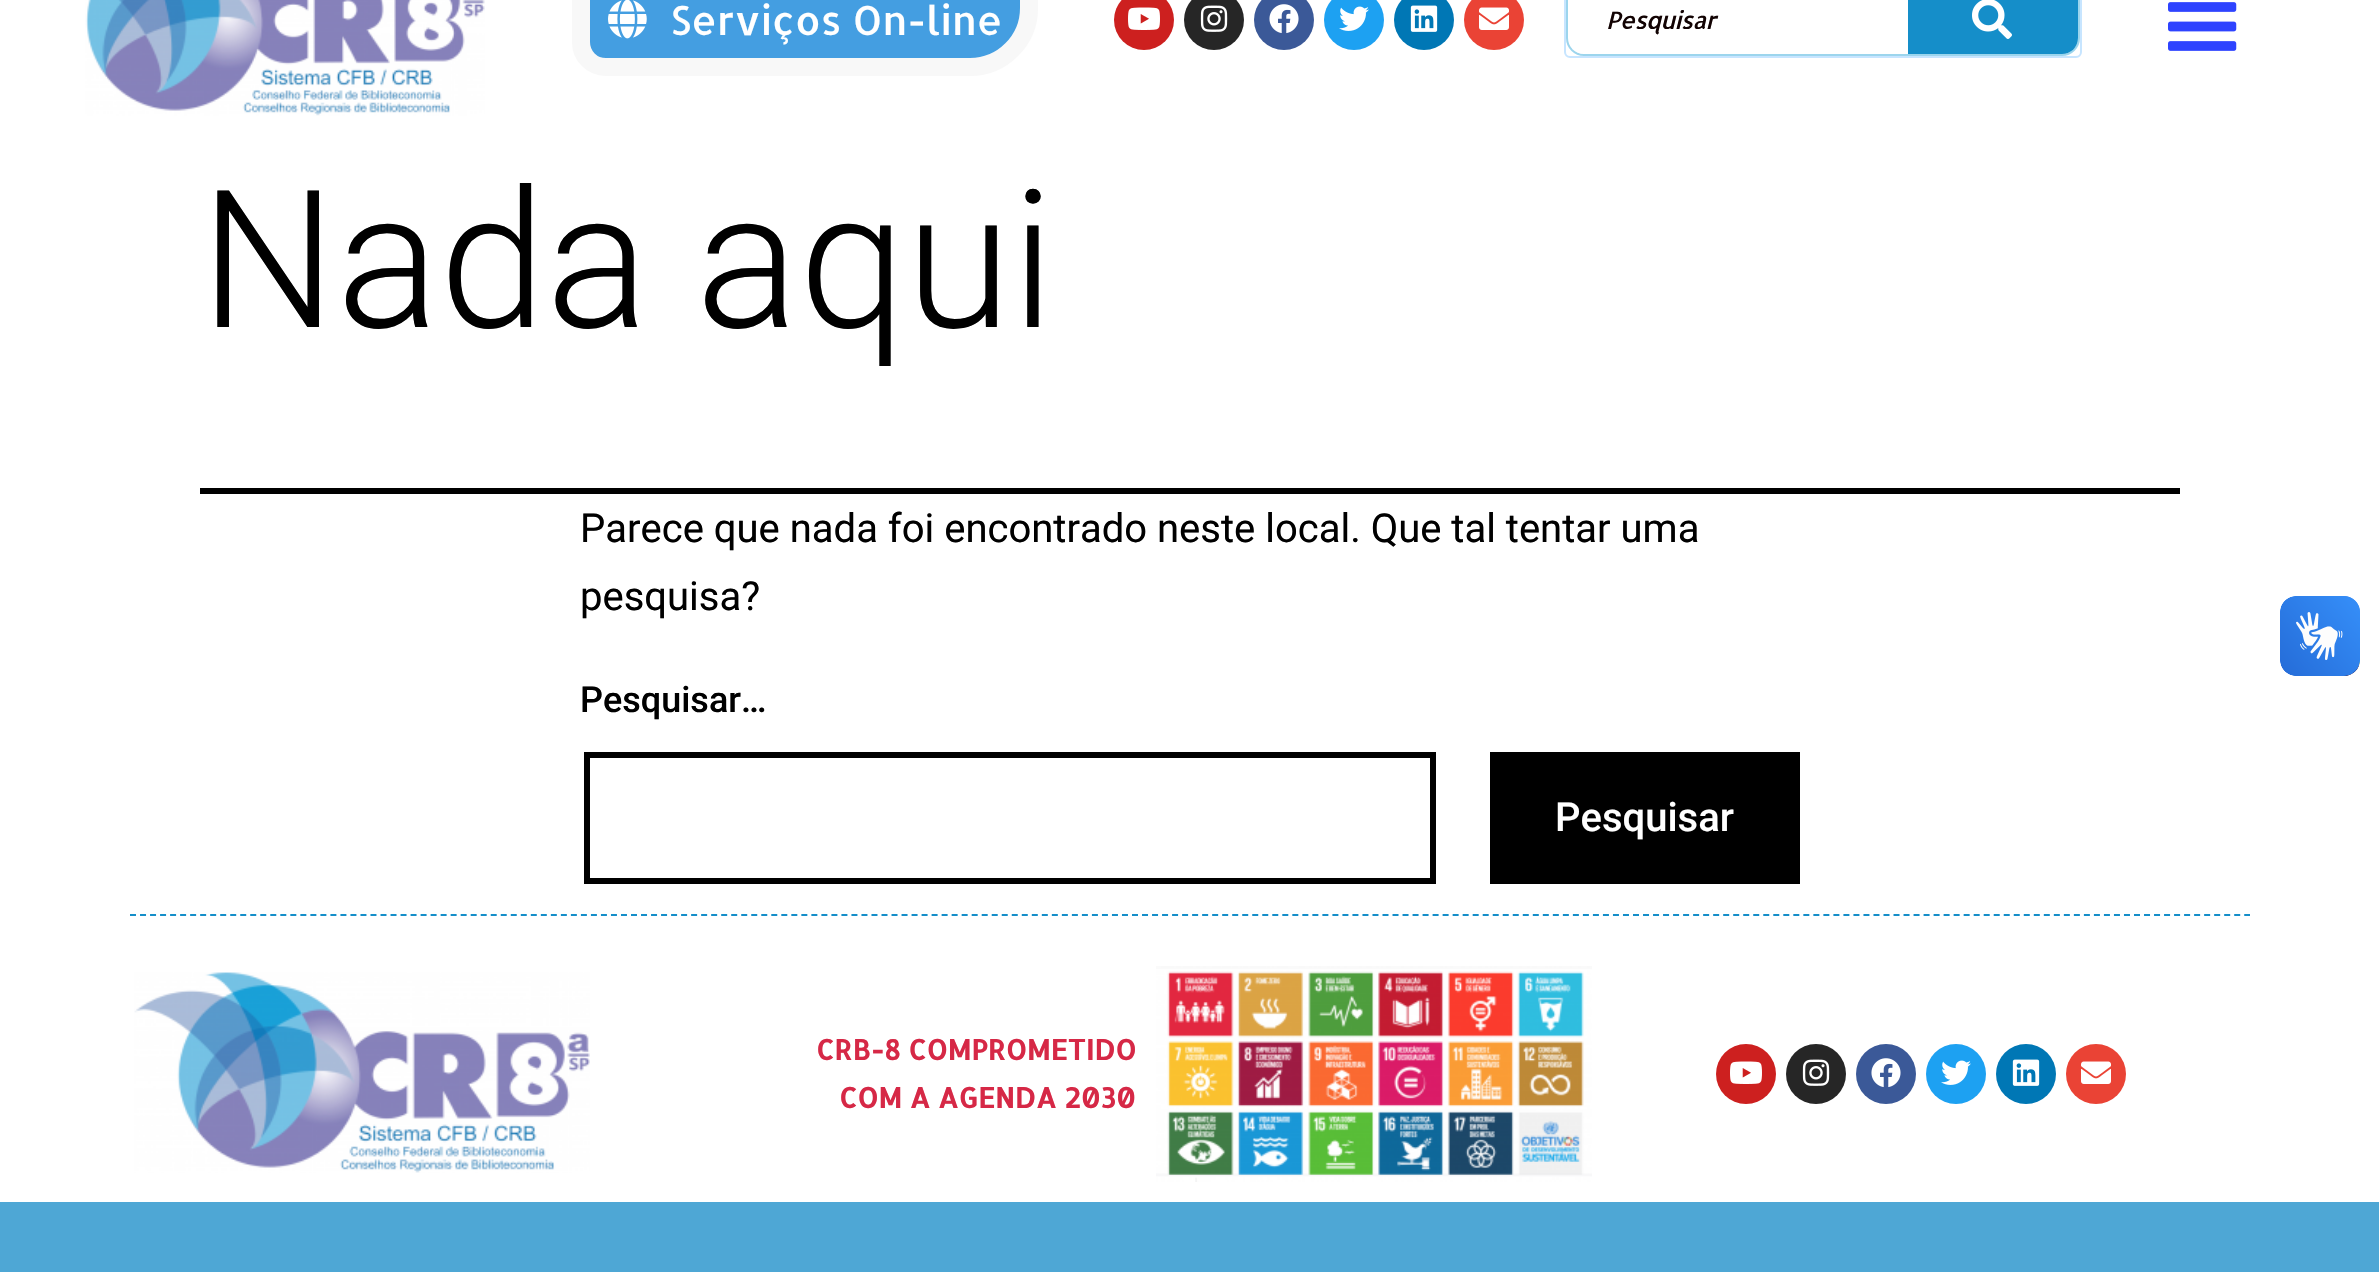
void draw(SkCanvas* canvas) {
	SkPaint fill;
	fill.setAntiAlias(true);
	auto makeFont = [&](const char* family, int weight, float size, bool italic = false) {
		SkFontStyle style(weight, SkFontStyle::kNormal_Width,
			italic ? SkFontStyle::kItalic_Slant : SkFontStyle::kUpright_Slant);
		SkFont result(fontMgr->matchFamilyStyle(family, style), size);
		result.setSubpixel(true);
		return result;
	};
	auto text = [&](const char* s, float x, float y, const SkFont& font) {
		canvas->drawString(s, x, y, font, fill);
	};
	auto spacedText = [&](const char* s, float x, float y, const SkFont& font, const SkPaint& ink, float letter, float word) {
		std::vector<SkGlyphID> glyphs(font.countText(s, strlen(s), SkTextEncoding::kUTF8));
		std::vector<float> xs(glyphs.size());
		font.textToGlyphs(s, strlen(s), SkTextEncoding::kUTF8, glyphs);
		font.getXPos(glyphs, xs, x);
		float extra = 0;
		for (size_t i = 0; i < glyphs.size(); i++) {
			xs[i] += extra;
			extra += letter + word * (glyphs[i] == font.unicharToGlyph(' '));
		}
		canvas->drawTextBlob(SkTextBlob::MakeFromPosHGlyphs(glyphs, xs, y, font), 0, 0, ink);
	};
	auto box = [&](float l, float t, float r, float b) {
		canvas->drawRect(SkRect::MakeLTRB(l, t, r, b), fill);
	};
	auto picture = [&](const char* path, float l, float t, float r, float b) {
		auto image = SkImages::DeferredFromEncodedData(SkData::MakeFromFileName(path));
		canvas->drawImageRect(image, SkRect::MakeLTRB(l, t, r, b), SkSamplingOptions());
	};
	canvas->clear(0xFFFFFFFF);
	picture("image0.png", 85, 0, 485, 116);
	fill.setColor(0xFF449EE1);
	canvas->drawPath(SkPathBuilder().moveTo(581, -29).lineTo(1029, -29).lineTo(1029, 8).cubicTo(1029, 40.5f, 1002.5f, 67, 970, 67).lineTo(606, 67).cubicTo(592, 67, 581, 56, 581, 42).close().detach(), fill);
	fill.setStyle(SkPaint::kStroke_Style);
	fill.setStrokeWidth(18);
	fill.setColor(0xFFF8F8F8);
	canvas->drawPath(SkPathBuilder().moveTo(581, -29).lineTo(1029, -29).lineTo(1029, 8).cubicTo(1029, 40.5f, 1002.5f, 67, 970, 67).lineTo(606, 67).cubicTo(592, 67, 581, 56, 581, 42).close().detach(), fill);
	picture("image1.png", 608, 0, 647, 39);
	fill.setStyle(SkPaint::kFill_Style);
	fill.setColor(0xFFCD201F);
	canvas->drawCircle(1144, 20, 30, fill);
	picture("image2.png", 1128, 7, 1160, 30);
	fill.setColor(0xFF262626);
	canvas->drawCircle(1214, 20, 30, fill);
	picture("image3.png", 1200, 5, 1228, 32);
	fill.setColor(0xFF3B5998);
	canvas->drawCircle(1284, 20, 30, fill);
	picture("image4.png", 1269, 4, 1299, 34);
	fill.setColor(0xFF1DA1F2);
	canvas->drawCircle(1354, 20, 30, fill);
	picture("image5.png", 1339, 6, 1369, 31);
	fill.setColor(0xFF0077B5);
	canvas->drawCircle(1424, 20, 30, fill);
	picture("image6.png", 1410, 5, 1438, 32);
	fill.setColor(0xFFEA4335);
	canvas->drawCircle(1494, 20, 30, fill);
	picture("image7.png", 1479, 7, 1509, 30);
	fill.setStyle(SkPaint::kStroke_Style);
	fill.setStrokeWidth(2);
	fill.setColor(0xFFC7E5FF);
	canvas->drawRoundRect(SkRect::MakeLTRB(1565, -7, 2081, 57), 5, 5, fill);
	fill.setColor(0xFF9CD5ED);
	canvas->drawRoundRect(SkRect::MakeLTRB(1567, -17, 2079, 55), 17, 17, fill);
	canvas->save();
	canvas->clipPath(SkPathBuilder().moveTo(1584, -16).lineTo(2062, -16).cubicTo(2071, -16, 2078, -9, 2078, 0).lineTo(2078, 38).cubicTo(2078, 47, 2071, 54, 2062, 54).lineTo(1584, 54).cubicTo(1575, 54, 1568, 47, 1568, 38).lineTo(1568, 0).cubicTo(1568, -9, 1575, -16, 1584, -16).close().detach(), true);
	fill.setStyle(SkPaint::kFill_Style);
	fill.setColor(0x87FFFFFF);
	box(1572, 0, 1904, 54);
	canvas->restore();
	fill.setColor(0xFF158EC9);
	canvas->drawPath(SkPathBuilder().moveTo(1908, -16).lineTo(2062, -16).cubicTo(2071, -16, 2078, -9, 2078, 0).lineTo(2078, 38).cubicTo(2078, 47, 2071, 54, 2062, 54).lineTo(1908, 54).close().detach(), fill);
	picture("image8.png", 1972, 0, 2012, 39);
	picture("image9.png", 2168, 2, 2237, 51);
	fill.setColor(0xFF000000);
	box(200, 488, 2180, 494);
	fill.setStyle(SkPaint::kStroke_Style);
	fill.setStrokeWidth(6);
	canvas->drawRect(SkRect::MakeLTRB(587, 755, 1433, 881), fill);
	fill.setStyle(SkPaint::kFill_Style);
	box(1490, 752, 1800, 884);
	fill.setStyle(SkPaint::kStroke_Style);
	fill.setStrokeWidth(2);
	fill.setColor(0xFF158EC9);
	fill.setPathEffect(SkDashPathEffect::Make({{6, 4.02f}}, 0));
	canvas->drawPath(SkPathBuilder().moveTo(130, 915).lineTo(2250, 915).detach(), fill);
	fill.setPathEffect(nullptr);
	picture("image10.png", 134, 972, 590, 1173);
	picture("image11.png", 1156, 966, 1592, 1182);
	fill.setStyle(SkPaint::kFill_Style);
	fill.setColor(0xFFCD201F);
	canvas->drawCircle(1746, 1074, 30, fill);
	picture("image2.png", 1730, 1061, 1762, 1084);
	fill.setColor(0xFF262626);
	canvas->drawCircle(1816, 1074, 30, fill);
	picture("image3.png", 1802, 1059, 1830, 1086);
	fill.setColor(0xFF3B5998);
	canvas->drawCircle(1886, 1074, 30, fill);
	picture("image4.png", 1871, 1058, 1901, 1088);
	fill.setColor(0xFF1DA1F2);
	canvas->drawCircle(1956, 1074, 30, fill);
	picture("image5.png", 1941, 1060, 1971, 1085);
	fill.setColor(0xFF0077B5);
	canvas->drawCircle(2026, 1074, 30, fill);
	picture("image6.png", 2012, 1059, 2040, 1086);
	fill.setColor(0xFFEA4335);
	canvas->drawCircle(2096, 1074, 30, fill);
	picture("image7.png", 2081, 1061, 2111, 1084);
	fill.setColor(0xFF4EA7D5);
	box(0, 1202, 2379, 1272);
	picture("image12.png", 2280, 596, 2360, 676);
	picture("image13.png", 2280, 596, 2360, 676);
	auto font1 = makeFont("Allerta", 400, 40);
	fill.setColor(0xFFFFFFFF);
	text("Serviços On-line", 670, 35, font1);
	auto font2 = makeFont("Allerta", 400, 24, true);
	fill.setColor(0xFF120303);
	spacedText("Pesquisar", 1606, 29, font2, fill, -0.75f, 0);
	auto font3 = makeFont("Roboto", 300, 192);
	fill.setColor(0xFF000000);
	text("Nada aqui", 200, 327, font3);
	auto font4 = makeFont("Roboto", 400, 40);
	text("Parece que nada foi encontrado neste local. Que tal tentar uma", 580, 542, font4);
	text("pesquisa?", 580, 610, font4);
	auto font5 = makeFont("Roboto", 500, 36);
	text("Pesquisar…", 580, 712, font5);
	auto font6 = makeFont("Roboto", 500, 40);
	fill.setColor(0xFFFFFFFF);
	text("Pesquisar", 1555, 831, font6);
	auto font7 = makeFont("Allerta", 700, 28);
	fill.setColor(0xFFD62846);
	text("CRB-8 COMPROMETIDO", 816, 1060, font7);
	text("COM A AGENDA 2030", 839, 1108, font7);
}
